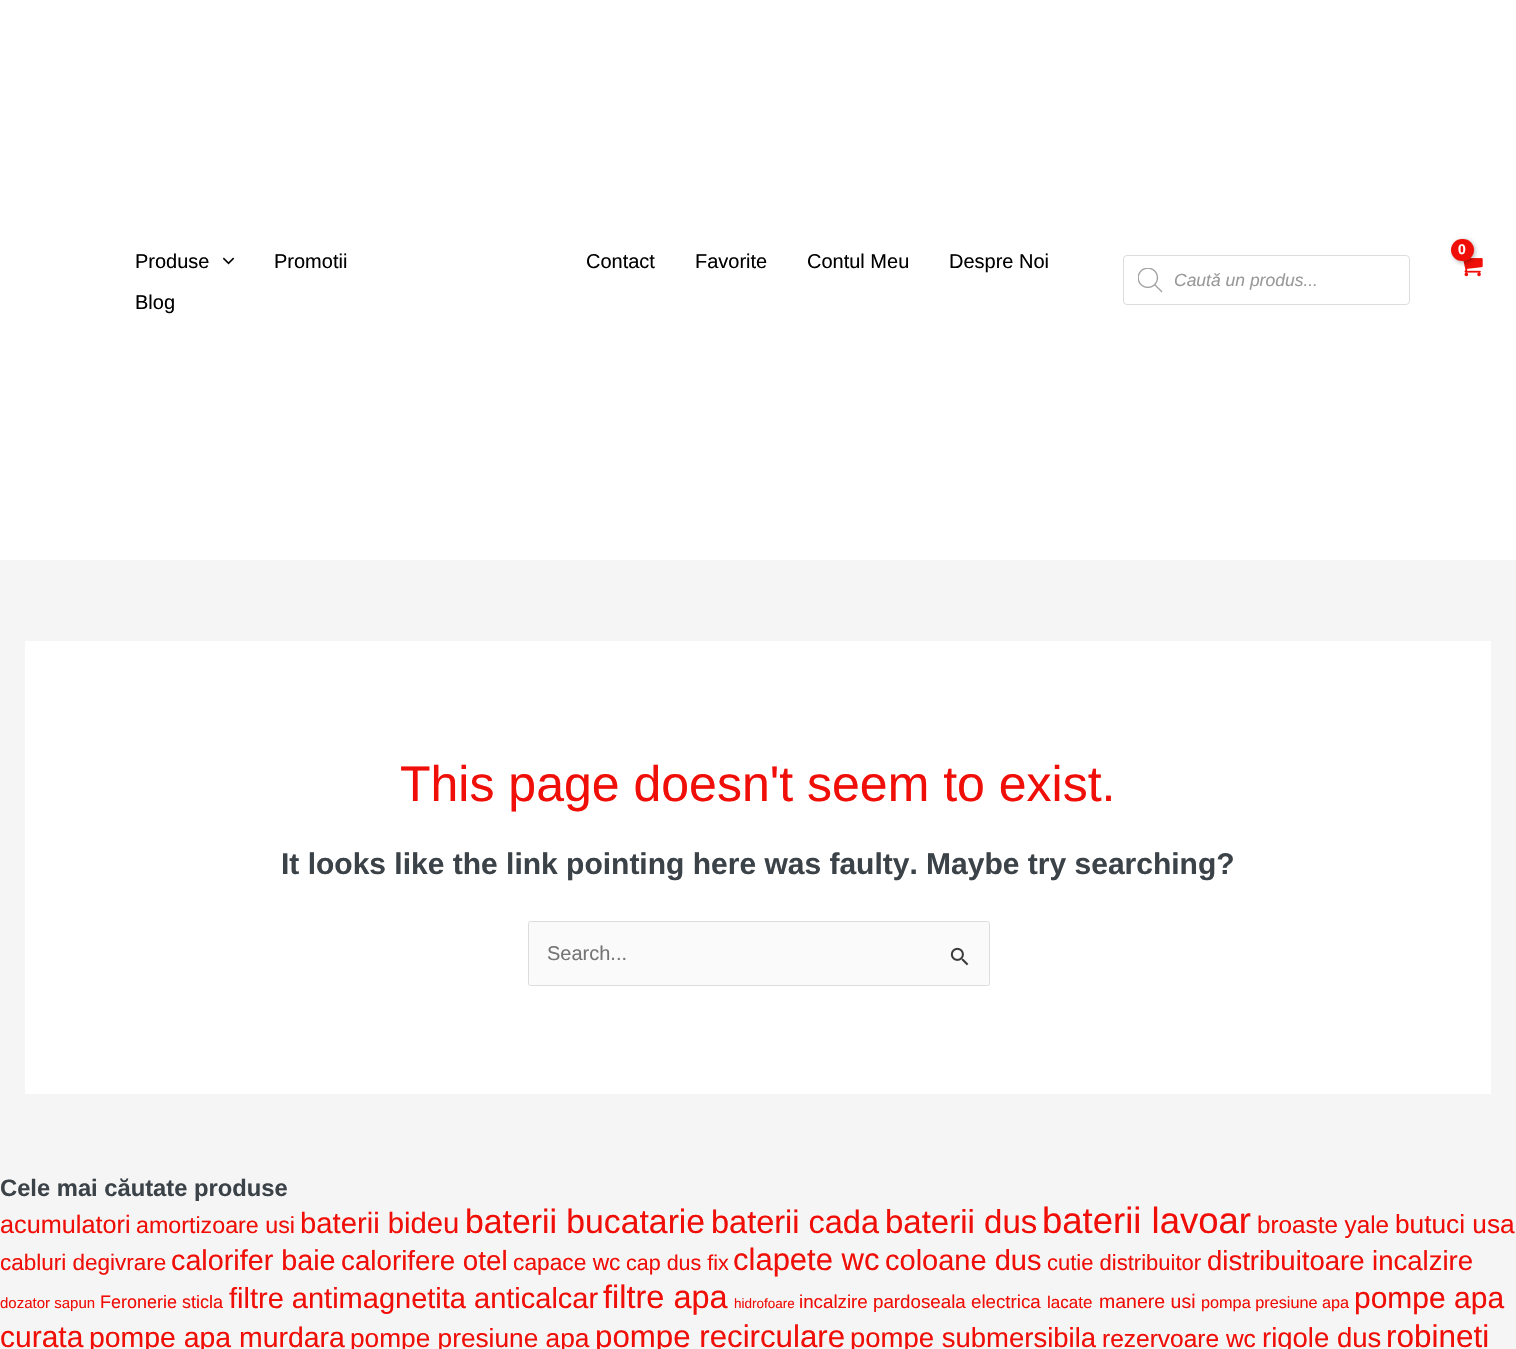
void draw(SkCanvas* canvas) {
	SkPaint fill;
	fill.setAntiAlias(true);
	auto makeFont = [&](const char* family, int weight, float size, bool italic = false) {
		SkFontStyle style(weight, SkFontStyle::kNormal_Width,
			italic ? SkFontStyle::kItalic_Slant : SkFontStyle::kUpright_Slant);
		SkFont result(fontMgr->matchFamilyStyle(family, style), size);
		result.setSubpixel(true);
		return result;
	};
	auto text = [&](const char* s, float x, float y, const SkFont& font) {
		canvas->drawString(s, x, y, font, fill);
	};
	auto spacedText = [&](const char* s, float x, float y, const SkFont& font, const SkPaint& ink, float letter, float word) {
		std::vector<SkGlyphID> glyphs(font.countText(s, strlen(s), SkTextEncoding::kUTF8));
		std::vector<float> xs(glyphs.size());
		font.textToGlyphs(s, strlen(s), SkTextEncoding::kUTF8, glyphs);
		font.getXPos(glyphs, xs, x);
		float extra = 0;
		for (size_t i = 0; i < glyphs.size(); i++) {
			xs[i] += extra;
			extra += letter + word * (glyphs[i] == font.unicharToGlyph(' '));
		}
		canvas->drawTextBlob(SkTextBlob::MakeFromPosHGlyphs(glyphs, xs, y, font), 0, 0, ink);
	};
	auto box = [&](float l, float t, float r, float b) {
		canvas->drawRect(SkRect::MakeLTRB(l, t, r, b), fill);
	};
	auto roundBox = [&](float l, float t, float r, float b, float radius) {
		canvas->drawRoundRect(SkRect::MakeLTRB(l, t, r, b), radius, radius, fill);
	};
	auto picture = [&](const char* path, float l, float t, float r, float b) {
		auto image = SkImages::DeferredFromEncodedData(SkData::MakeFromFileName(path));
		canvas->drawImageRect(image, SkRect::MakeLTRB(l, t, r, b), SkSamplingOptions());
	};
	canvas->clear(0xFFF5F5F5);
	fill.setColor(0xFFFFFFFF);
	box(0, 0, 1516, 560);
	fill.setColor(0xFFF2F5F7);
	box(0, 560, 1516, 561);
	picture("image0.png", 223, 257, 234, 265);
	picture("image1.png", 1463, 258, 1483, 277);
	fill.setColor(0x4D000000);
	fill.setMaskFilter(SkMaskFilter::MakeBlur(kNormal_SkBlurStyle, 2));
	canvas->drawRoundRect(SkRect::MakeLTRB(1453, 240, 1475, 263), 11, 11, fill);
	fill.setMaskFilter(nullptr);
	fill.setColor(0xFFF00F08);
	roundBox(1451, 239, 1474, 261, 11);
	fill.setStyle(SkPaint::kStroke_Style);
	fill.setStrokeWidth(1);
	fill.setColor(0xFFDDDDDD);
	canvas->drawRoundRect(SkRect::MakeLTRB(1123.5f, 255.5f, 1409.5f, 304.5f), 3.5f, 3.5f, fill);
	picture("image2.png", 1138, 268, 1163, 293);
	fill.setStyle(SkPaint::kFill_Style);
	fill.setColor(0xFFFFFFFF);
	box(25, 641, 1491, 1094);
	fill.setColor(0xFFFAFAFA);
	canvas->drawRoundRect(SkRect::MakeLTRB(528.5f, 921.5f, 989.5f, 985.5f), 2, 2, fill);
	fill.setStyle(SkPaint::kStroke_Style);
	fill.setColor(0xFFDDDDDD);
	canvas->drawRoundRect(SkRect::MakeLTRB(528.5f, 921.5f, 989.5f, 985.5f), 2, 2, fill);
	picture("image3.png", 950, 947, 969, 966);
	auto font1 = makeFont("Liberation Sans", 400, 20);
	fill.setStyle(SkPaint::kFill_Style);
	fill.setColor(0xFF000000);
	text("Produse", 135, 268, font1);
	text("Promotii", 274, 268, font1);
	text("Contact", 586, 268, font1);
	text("Favorite", 695, 268, font1);
	text("Contul Meu", 807, 268, font1);
	text("Despre Noi", 949, 268, font1);
	text("Blog", 135, 309, font1);
	auto font2 = makeFont("Liberation Sans", 700, 14);
	fill.setColor(0xFFFFFFFF);
	spacedText("0", 1458, 254, font2, fill, -1, 0);
	auto font3 = makeFont("Liberation Sans", 400, 17.5f, true);
	fill.setColor(0xFF999999);
	text("Caută un produs...", 1174, 286, font3);
	auto font4 = makeFont("Liberation Sans", 400, 50);
	fill.setColor(0xFFF00F08);
	text("This page doesn't seem to exist.", 400, 801, font4);
	auto font5 = makeFont("Liberation Sans", 700, 30);
	fill.setColor(0xFF3B4248);
	text("It looks like the link pointing here was faulty. Maybe try searching?", 281, 874, font5);
	fill.setColor(0xFF757575);
	text("Search...", 547, 960, font1);
	auto font6 = makeFont("Liberation Sans", 700, 23.75f);
	fill.setColor(0xFF3B4248);
	text("Cele mai căutate produse", 0, 1196, font6);
	auto font7 = makeFont("Liberation Sans", 400, 25.25f);
	fill.setColor(0xFFF00F08);
	text("acumulatori", 0, 1233, font7);
	auto font8 = makeFont("Liberation Sans", 400, 23.25f);
	text("amortizoare usi", 136, 1233, font8);
	auto font9 = makeFont("Liberation Sans", 400, 29.25f);
	text("baterii bideu", 300, 1233, font9);
	auto font10 = makeFont("Liberation Sans", 400, 33.75f);
	text("baterii bucatarie", 465, 1233, font10);
	auto font11 = makeFont("Liberation Sans", 400, 32.5f);
	text("baterii cada", 711, 1233, font11);
	auto font12 = makeFont("Liberation Sans", 400, 33);
	text("baterii dus", 885, 1233, font12);
	auto font13 = makeFont("Liberation Sans", 400, 36.5f);
	text("baterii lavoar", 1042, 1233, font13);
	auto font14 = makeFont("Liberation Sans", 400, 24.25f);
	text("broaste yale", 1257, 1233, font14);
	auto font15 = makeFont("Liberation Sans", 400, 26.25f);
	text("butuci usa", 1395, 1233, font15);
	auto font16 = makeFont("Liberation Sans", 400, 22.5f);
	text("cabluri degivrare", 0, 1270, font16);
	auto font17 = makeFont("Liberation Sans", 400, 28.75f);
	text("calorifer baie", 171, 1270, font17);
	auto font18 = makeFont("Liberation Sans", 400, 27.75f);
	text("calorifere otel", 341, 1270, font18);
	auto font19 = makeFont("Liberation Sans", 400, 22.75f);
	text("capace wc", 513, 1270, font19);
	auto font20 = makeFont("Liberation Sans", 400, 21.5f);
	text("cap dus fix", 626, 1270, font20);
	auto font21 = makeFont("Liberation Sans", 400, 31);
	text("clapete wc", 733, 1270, font21);
	auto font22 = makeFont("Liberation Sans", 400, 29);
	text("coloane dus", 885, 1270, font22);
	auto font23 = makeFont("Liberation Sans", 400, 22);
	text("cutie distribuitor", 1047, 1270, font23);
	auto font24 = makeFont("Liberation Sans", 400, 27.5f);
	text("distribuitoare incalzire", 1207, 1270, font24);
	auto font25 = makeFont("Liberation Sans", 400, 15);
	text("dozator sapun", 0, 1308, font25);
	auto font26 = makeFont("Liberation Sans", 400, 18);
	text("Feronerie sticla", 100, 1308, font26);
	text("filtre antimagnetita anticalcar", 229, 1308, font22);
	text("filtre apa", 603, 1308, font11);
	auto font27 = makeFont("Liberation Sans", 400, 13.5f);
	text("hidrofoare", 734, 1308, font27);
	auto font28 = makeFont("Liberation Sans", 400, 18.75f);
	text("incalzire pardoseala electrica", 799, 1308, font28);
	auto font29 = makeFont("Liberation Sans", 400, 17);
	text("lacate", 1047, 1308, font29);
	auto font30 = makeFont("Liberation Sans", 400, 19.5f);
	text("manere usi", 1099, 1308, font30);
	auto font31 = makeFont("Liberation Sans", 400, 16.25f);
	text("pompa presiune apa", 1201, 1308, font31);
	auto font32 = makeFont("Liberation Sans", 400, 30);
	text("pompe apa", 1354, 1308, font32);
	text("curata", 0, 1347, font32);
	auto font33 = makeFont("Liberation Sans", 400, 28.4f);
	text("pompe apa murdara", 89, 1347, font33);
	text("pompe presiune apa", 350, 1347, font15);
	auto font34 = makeFont("Liberation Sans", 400, 31.25f);
	text("pompe recirculare", 595, 1347, font34);
	text("pompe submersibila", 850, 1347, font24);
	auto font35 = makeFont("Liberation Sans", 400, 24.5f);
	text("rezervoare wc", 1102, 1347, font35);
	text("rigole dus", 1262, 1347, font24);
	auto font36 = makeFont("Liberation Sans", 400, 31.5f);
	text("robineti", 1386, 1347, font36);
}
